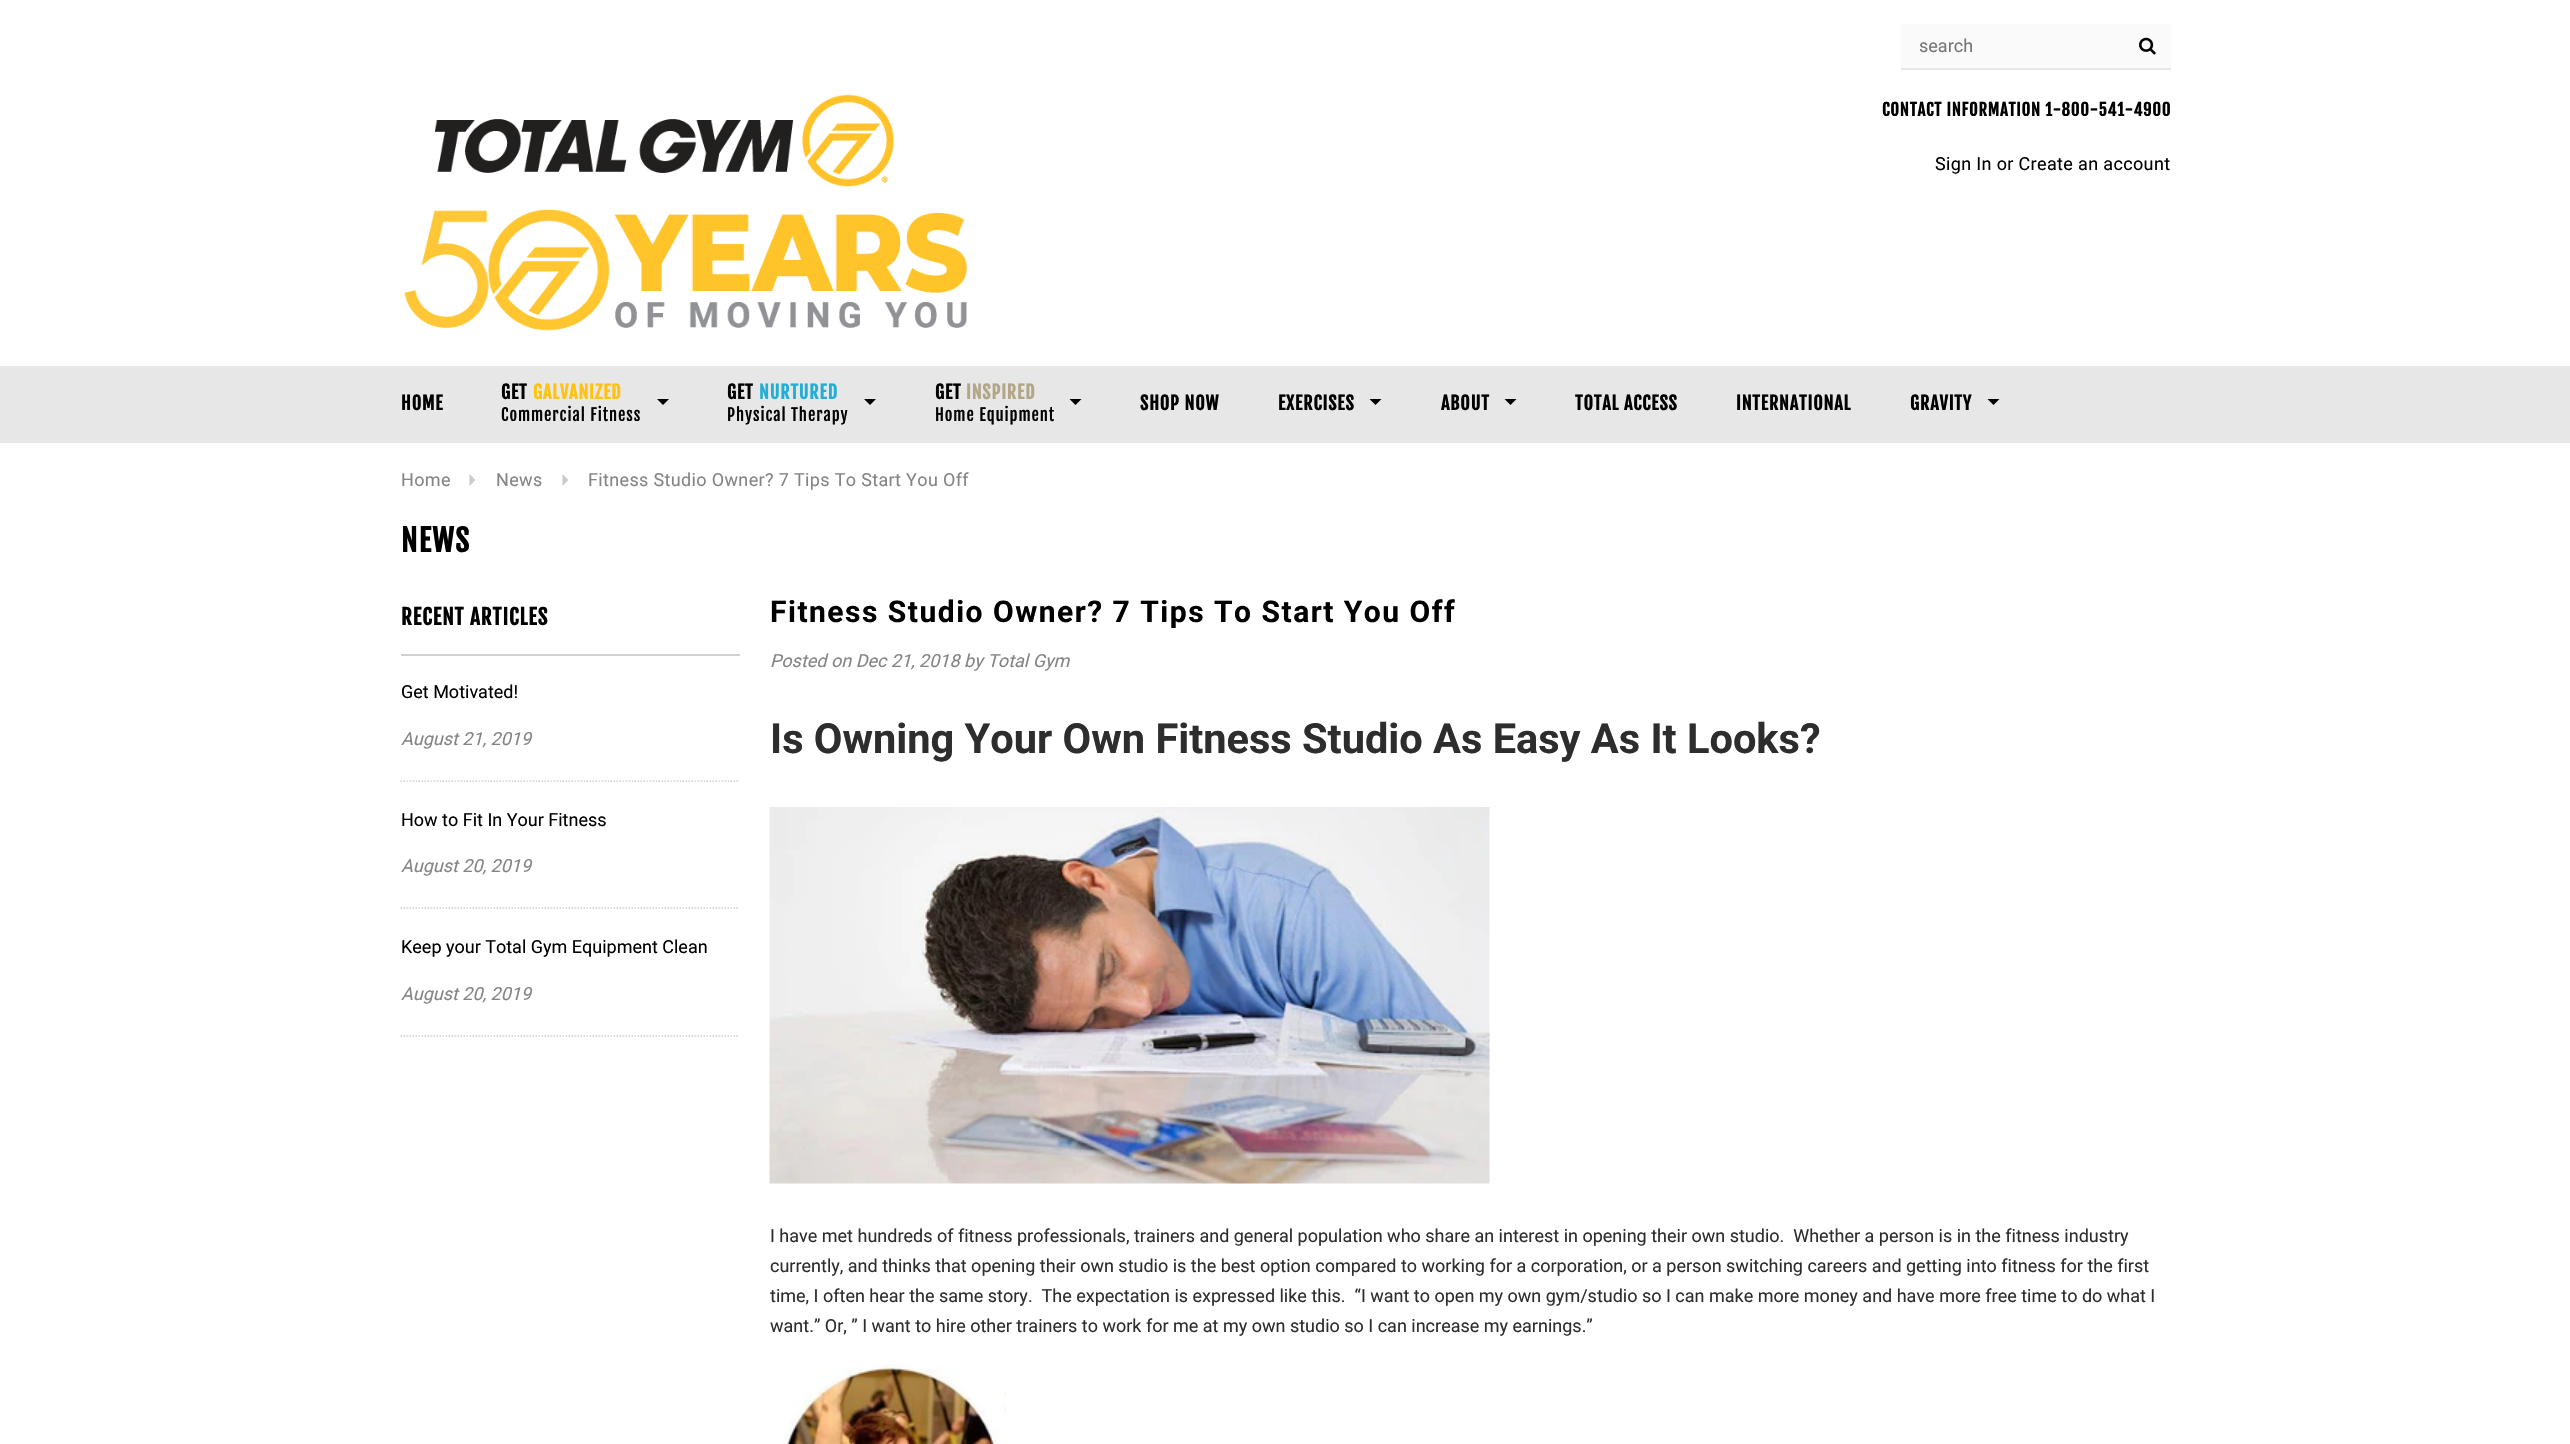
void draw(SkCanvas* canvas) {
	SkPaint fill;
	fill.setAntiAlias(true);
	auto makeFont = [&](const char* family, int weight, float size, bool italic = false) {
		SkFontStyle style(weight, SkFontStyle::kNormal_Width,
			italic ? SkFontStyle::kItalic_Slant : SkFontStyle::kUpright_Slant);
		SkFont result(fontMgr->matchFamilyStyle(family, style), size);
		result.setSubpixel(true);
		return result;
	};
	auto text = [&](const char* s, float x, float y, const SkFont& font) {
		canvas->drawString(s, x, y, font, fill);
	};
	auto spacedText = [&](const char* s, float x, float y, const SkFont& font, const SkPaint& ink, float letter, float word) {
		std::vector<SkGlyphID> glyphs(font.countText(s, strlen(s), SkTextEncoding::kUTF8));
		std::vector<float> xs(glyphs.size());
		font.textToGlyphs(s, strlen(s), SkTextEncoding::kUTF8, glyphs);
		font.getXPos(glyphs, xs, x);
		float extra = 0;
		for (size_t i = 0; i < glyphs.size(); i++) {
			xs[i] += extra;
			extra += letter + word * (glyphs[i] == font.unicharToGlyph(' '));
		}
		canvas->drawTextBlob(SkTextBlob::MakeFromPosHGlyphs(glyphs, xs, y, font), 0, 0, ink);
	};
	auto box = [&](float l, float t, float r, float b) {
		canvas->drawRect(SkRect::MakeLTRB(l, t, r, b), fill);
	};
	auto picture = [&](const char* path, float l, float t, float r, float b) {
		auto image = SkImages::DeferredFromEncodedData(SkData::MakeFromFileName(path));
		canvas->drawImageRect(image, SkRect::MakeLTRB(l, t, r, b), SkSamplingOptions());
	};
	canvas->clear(0xFFFFFFFF);
	fill.setColor(0xFFFAFAFA);
	box(1901, 24, 2171, 68);
	fill.setColor(0xFFE7E7E7);
	box(1901, 68, 2171, 70);
	picture("image0.png", 2139, 37, 2156, 55);
	picture("image1.png", 404, 94, 968, 331);
	box(0, 366, 2570, 443);
	fill.setColor(0xFF000000);
	canvas->drawPath(SkPathBuilder().moveTo(657, 399).lineTo(669, 399).lineTo(663, 405).close().detach(), fill);
	canvas->drawPath(SkPathBuilder().moveTo(864, 399).lineTo(876, 399).lineTo(870, 405).close().detach(), fill);
	canvas->drawPath(SkPathBuilder().moveTo(1069.5f, 399).lineTo(1081.5f, 399).lineTo(1075.5f, 405).close().detach(), fill);
	canvas->drawPath(SkPathBuilder().moveTo(1369.5f, 399).lineTo(1381.5f, 399).lineTo(1375.5f, 405).close().detach(), fill);
	canvas->drawPath(SkPathBuilder().moveTo(1504.5f, 399).lineTo(1516.5f, 399).lineTo(1510.5f, 405).close().detach(), fill);
	canvas->drawPath(SkPathBuilder().moveTo(1987.5f, 399).lineTo(1999.5f, 399).lineTo(1993.5f, 405).close().detach(), fill);
	fill.setColor(0xFFCBCBCB);
	canvas->drawPath(SkPathBuilder().moveTo(469.5f, 486).lineTo(469.5f, 474).lineTo(475.5f, 480).close().detach(), fill);
	canvas->drawPath(SkPathBuilder().moveTo(562.5f, 486).lineTo(562.5f, 474).lineTo(568.5f, 480).close().detach(), fill);
	fill.setColor(0xFFD0D0D0);
	box(401, 654, 740, 656);
	fill.setStyle(SkPaint::kStroke_Style);
	fill.setStrokeWidth(1.5f);
	fill.setPathEffect(SkDashPathEffect::Make({{1.5f, 1.5f}}, 0));
	canvas->drawPath(SkPathBuilder().moveTo(400.5f, 781).lineTo(739.5f, 781).detach(), fill);
	fill.setPathEffect(nullptr);
	fill.setPathEffect(SkDashPathEffect::Make({{1.5f, 1.5f}}, 0));
	canvas->drawPath(SkPathBuilder().moveTo(400.5f, 908).lineTo(739.5f, 908).detach(), fill);
	fill.setPathEffect(nullptr);
	fill.setPathEffect(SkDashPathEffect::Make({{1.5f, 1.5f}}, 0));
	canvas->drawPath(SkPathBuilder().moveTo(400.5f, 1036).lineTo(739.5f, 1036).detach(), fill);
	fill.setPathEffect(nullptr);
	picture("image2.png", 769, 807, 1490, 1184);
	picture("image3.png", 783, 1364, 1007, 1444);
	auto font1 = makeFont("Roboto", 400, 18);
	fill.setStyle(SkPaint::kFill_Style);
	fill.setColor(0xFF757575);
	text("search", 1919, 52, font1);
	auto font2 = makeFont("Fjalla One", 700, 16.5f);
	fill.setColor(0xFF000000);
	spacedText("CONTACT INFORMATION 1-800-541-4900", 1882, 116, font2, fill, 0.85f, 0);
	spacedText("Sign In or Create an account", 1935, 170, font1, fill, 0.35f, 0);
	auto font3 = makeFont("Fjalla One", 700, 18);
	spacedText("HOME", 401, 410, font3, fill, 0.9f, 0);
	spacedText("GET", 501, 399, font3, fill, 0.9f, 0);
	fill.setColor(0xFFFFC20E);
	spacedText("GALVANIZED", 533, 399, font3, fill, 0.9f, 0);
	auto font4 = makeFont("Fjalla One", 400, 16.5f);
	fill.setColor(0xFF000000);
	spacedText("Commercial Fitness", 501, 421, font4, fill, 0.9f, 0);
	spacedText("GET", 727, 399, font3, fill, 0.9f, 0);
	fill.setColor(0xFF21AFD6);
	spacedText("NURTURED", 759, 399, font3, fill, 0.9f, 0);
	fill.setColor(0xFF000000);
	spacedText("Physical Therapy", 727, 421, font4, fill, 0.9f, 0);
	spacedText("GET", 935, 399, font3, fill, 0.9f, 0);
	fill.setColor(0xFFB3A588);
	spacedText("INSPIRED", 966, 399, font3, fill, 0.9f, 0);
	fill.setColor(0xFF000000);
	spacedText("Home Equipment", 935, 421, font4, fill, 0.9f, 0);
	spacedText("SHOP NOW", 1140, 410, font3, fill, 0.9f, 0);
	spacedText("EXERCISES", 1278, 410, font3, fill, 0.9f, 0);
	spacedText("ABOUT", 1441, 410, font3, fill, 0.9f, 0);
	spacedText("TOTAL ACCESS", 1575, 410, font3, fill, 0.9f, 0);
	spacedText("INTERNATIONAL", 1736, 410, font3, fill, 0.9f, 0);
	spacedText("GRAVITY", 1910, 410, font3, fill, 0.9f, 0);
	fill.setColor(0xFF848484);
	spacedText("Home", 401, 486, font1, fill, 0.35f, 0);
	spacedText("News", 496, 486, font1, fill, 0.35f, 0);
	spacedText("Fitness Studio Owner? 7 Tips To Start You Off", 588, 486, font1, fill, 0.35f, 0);
	auto font5 = makeFont("Fjalla One", 700, 30);
	fill.setColor(0xFF000000);
	spacedText("NEWS", 401, 552, font5, fill, 1.5f, 0);
	auto font6 = makeFont("Fjalla One", 700, 21);
	spacedText("RECENT ARTICLES", 401, 625, font6, fill, 1, 0);
	text("Get Motivated!", 401, 698, font1);
	auto font7 = makeFont("Roboto", 400, 18, true);
	fill.setColor(0xFF848484);
	text("August 21, 2019", 401, 745, font7);
	fill.setColor(0xFF000000);
	text("How to Fit In Your Fitness", 401, 826, font1);
	fill.setColor(0xFF848484);
	text("August 20, 2019", 401, 872, font7);
	fill.setColor(0xFF000000);
	text("Keep your Total Gym Equipment Clean", 401, 953, font1);
	fill.setColor(0xFF848484);
	text("August 20, 2019", 401, 1000, font7);
	auto font8 = makeFont("Roboto", 700, 30);
	fill.setColor(0xFF000000);
	spacedText("Fitness Studio Owner? 7 Tips To Start You Off", 770, 622, font8, fill, 1.5f, 0);
	fill.setColor(0xFF848484);
	text("Posted on Dec 21, 2018 by Total Gym", 770, 667, font7);
	auto font9 = makeFont("Roboto", 700, 41.55f);
	fill.setColor(0xFF2D2D2D);
	text("Is Owning Your Own Fitness Studio As Easy As It Looks?", 770, 753, font9);
	text("I have met hundreds of fitness professionals, trainers and general population who share an interest in opening their own studio.  Whether a person is in the fitness industry", 770, 1242, font1);
	text("currently, and thinks that opening their own studio is the best option compared to working for a corporation, or a person switching careers and getting into fitness for the first", 770, 1272, font1);
	text("time, I often hear the same story.  The expectation is expressed like this.  “I want to open my own gym/studio so I can make more money and have more free time to do what I", 770, 1302, font1);
	text("want.” Or, ” I want to hire other trainers to work for me at my own studio so I can increase my earnings.”", 770, 1332, font1);
}
